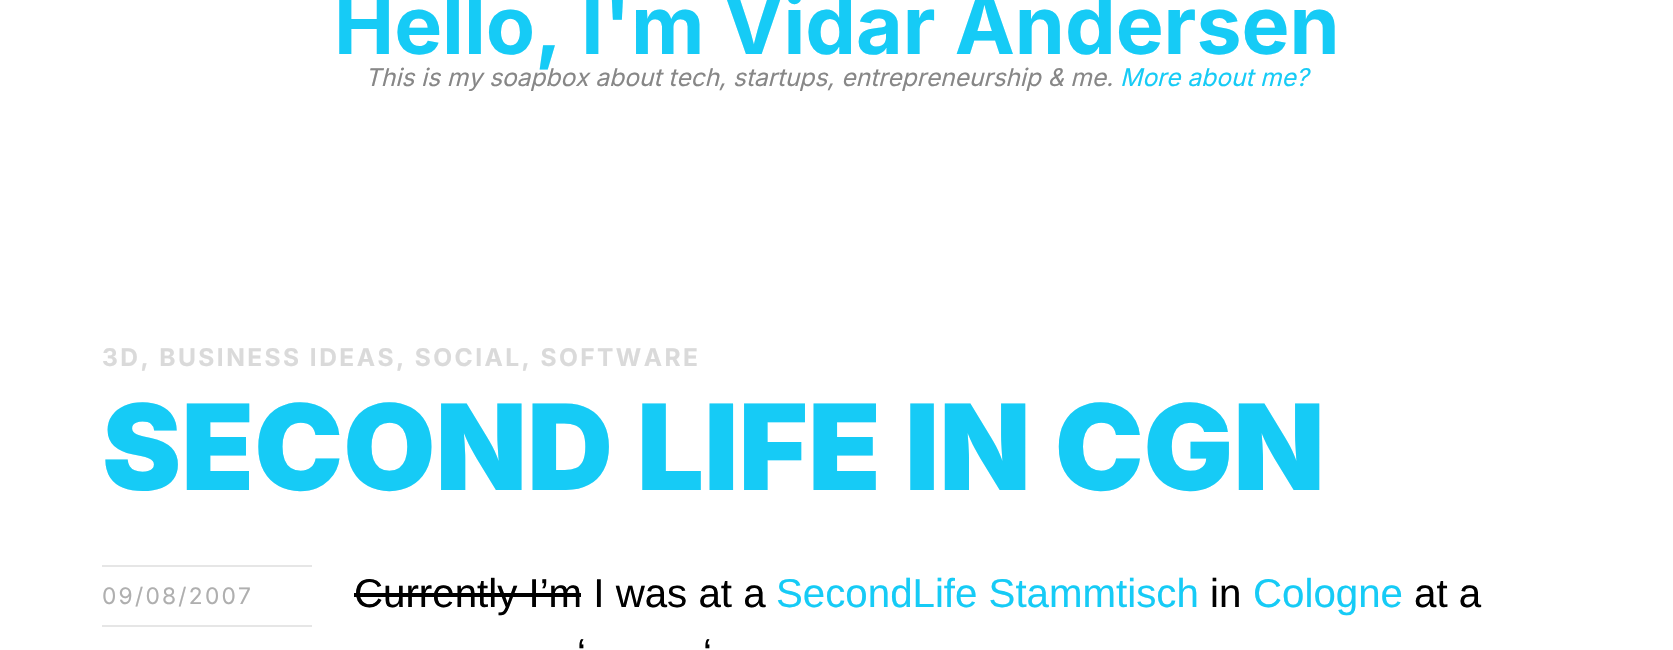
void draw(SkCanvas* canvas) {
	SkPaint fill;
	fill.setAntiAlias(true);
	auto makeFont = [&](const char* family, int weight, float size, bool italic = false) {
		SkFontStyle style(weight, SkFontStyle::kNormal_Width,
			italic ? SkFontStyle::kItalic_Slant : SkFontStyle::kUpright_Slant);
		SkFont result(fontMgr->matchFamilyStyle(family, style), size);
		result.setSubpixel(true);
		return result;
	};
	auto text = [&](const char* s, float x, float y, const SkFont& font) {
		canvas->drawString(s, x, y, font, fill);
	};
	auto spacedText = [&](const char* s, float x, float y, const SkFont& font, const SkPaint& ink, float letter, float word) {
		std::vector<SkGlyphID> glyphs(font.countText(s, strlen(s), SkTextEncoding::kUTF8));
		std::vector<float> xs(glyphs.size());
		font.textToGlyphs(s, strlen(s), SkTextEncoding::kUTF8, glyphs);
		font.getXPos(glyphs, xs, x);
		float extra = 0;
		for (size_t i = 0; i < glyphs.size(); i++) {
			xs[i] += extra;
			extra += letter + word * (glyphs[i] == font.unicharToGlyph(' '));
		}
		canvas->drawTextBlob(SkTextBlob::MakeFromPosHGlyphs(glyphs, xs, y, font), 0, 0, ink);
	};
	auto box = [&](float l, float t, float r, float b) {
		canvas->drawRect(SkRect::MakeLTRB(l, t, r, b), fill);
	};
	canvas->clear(0xFFFFFFFF);
	fill.setColor(0xFFE6E6E6);
	box(102, 565, 312, 567);
	box(102, 625, 312, 627);
	fill.setColor(0xFF000000);
	box(354, 593, 581, 597);
	auto font1 = makeFont("Inter", 700, 80.5f);
	fill.setColor(0xFF16CBF6);
	text("Hello, I'm Vidar Andersen", 334, 54, font1);
	auto font2 = makeFont("Inter", 400, 24.5f, true);
	fill.setColor(0xFF878787);
	text("This is my soapbox about tech, startups, entrepreneurship & me.", 365, 86, font2);
	fill.setColor(0xFF16CBF6);
	text("More about me?", 1120, 86, font2);
	auto font3 = makeFont("Inter", 700, 24.5f);
	fill.setColor(0xFFDADADA);
	spacedText("3D, BUSINESS IDEAS, SOCIAL, SOFTWARE", 102, 366, font3, fill, 2.45f, 0);
	auto font4 = makeFont("Inter", 900, 119);
	fill.setColor(0xFF16CBF6);
	text("SECOND LIFE IN CGN", 102, 490, font4);
	auto font5 = makeFont("Inter", 400, 22.75f);
	fill.setColor(0xFFAFAFAF);
	spacedText("09/08/2007", 102, 604, font5, fill, 2.25f, 0);
	auto font6 = makeFont("Liberation Sans", 400, 40.25f);
	fill.setColor(0xFF000000);
	text("Currently I’m I was at a", 354, 607, font6);
	fill.setColor(0xFF16CBF6);
	text("SecondLife Stammtisch", 776, 607, font6);
	fill.setColor(0xFF000000);
	text("in", 1210, 607, font6);
	fill.setColor(0xFF16CBF6);
	text("Cologne", 1253, 607, font6);
	fill.setColor(0xFF000000);
	text("at a", 1414, 607, font6);
	text("‘", 577, 667, font6);
	text("‘", 703, 667, font6);
}
